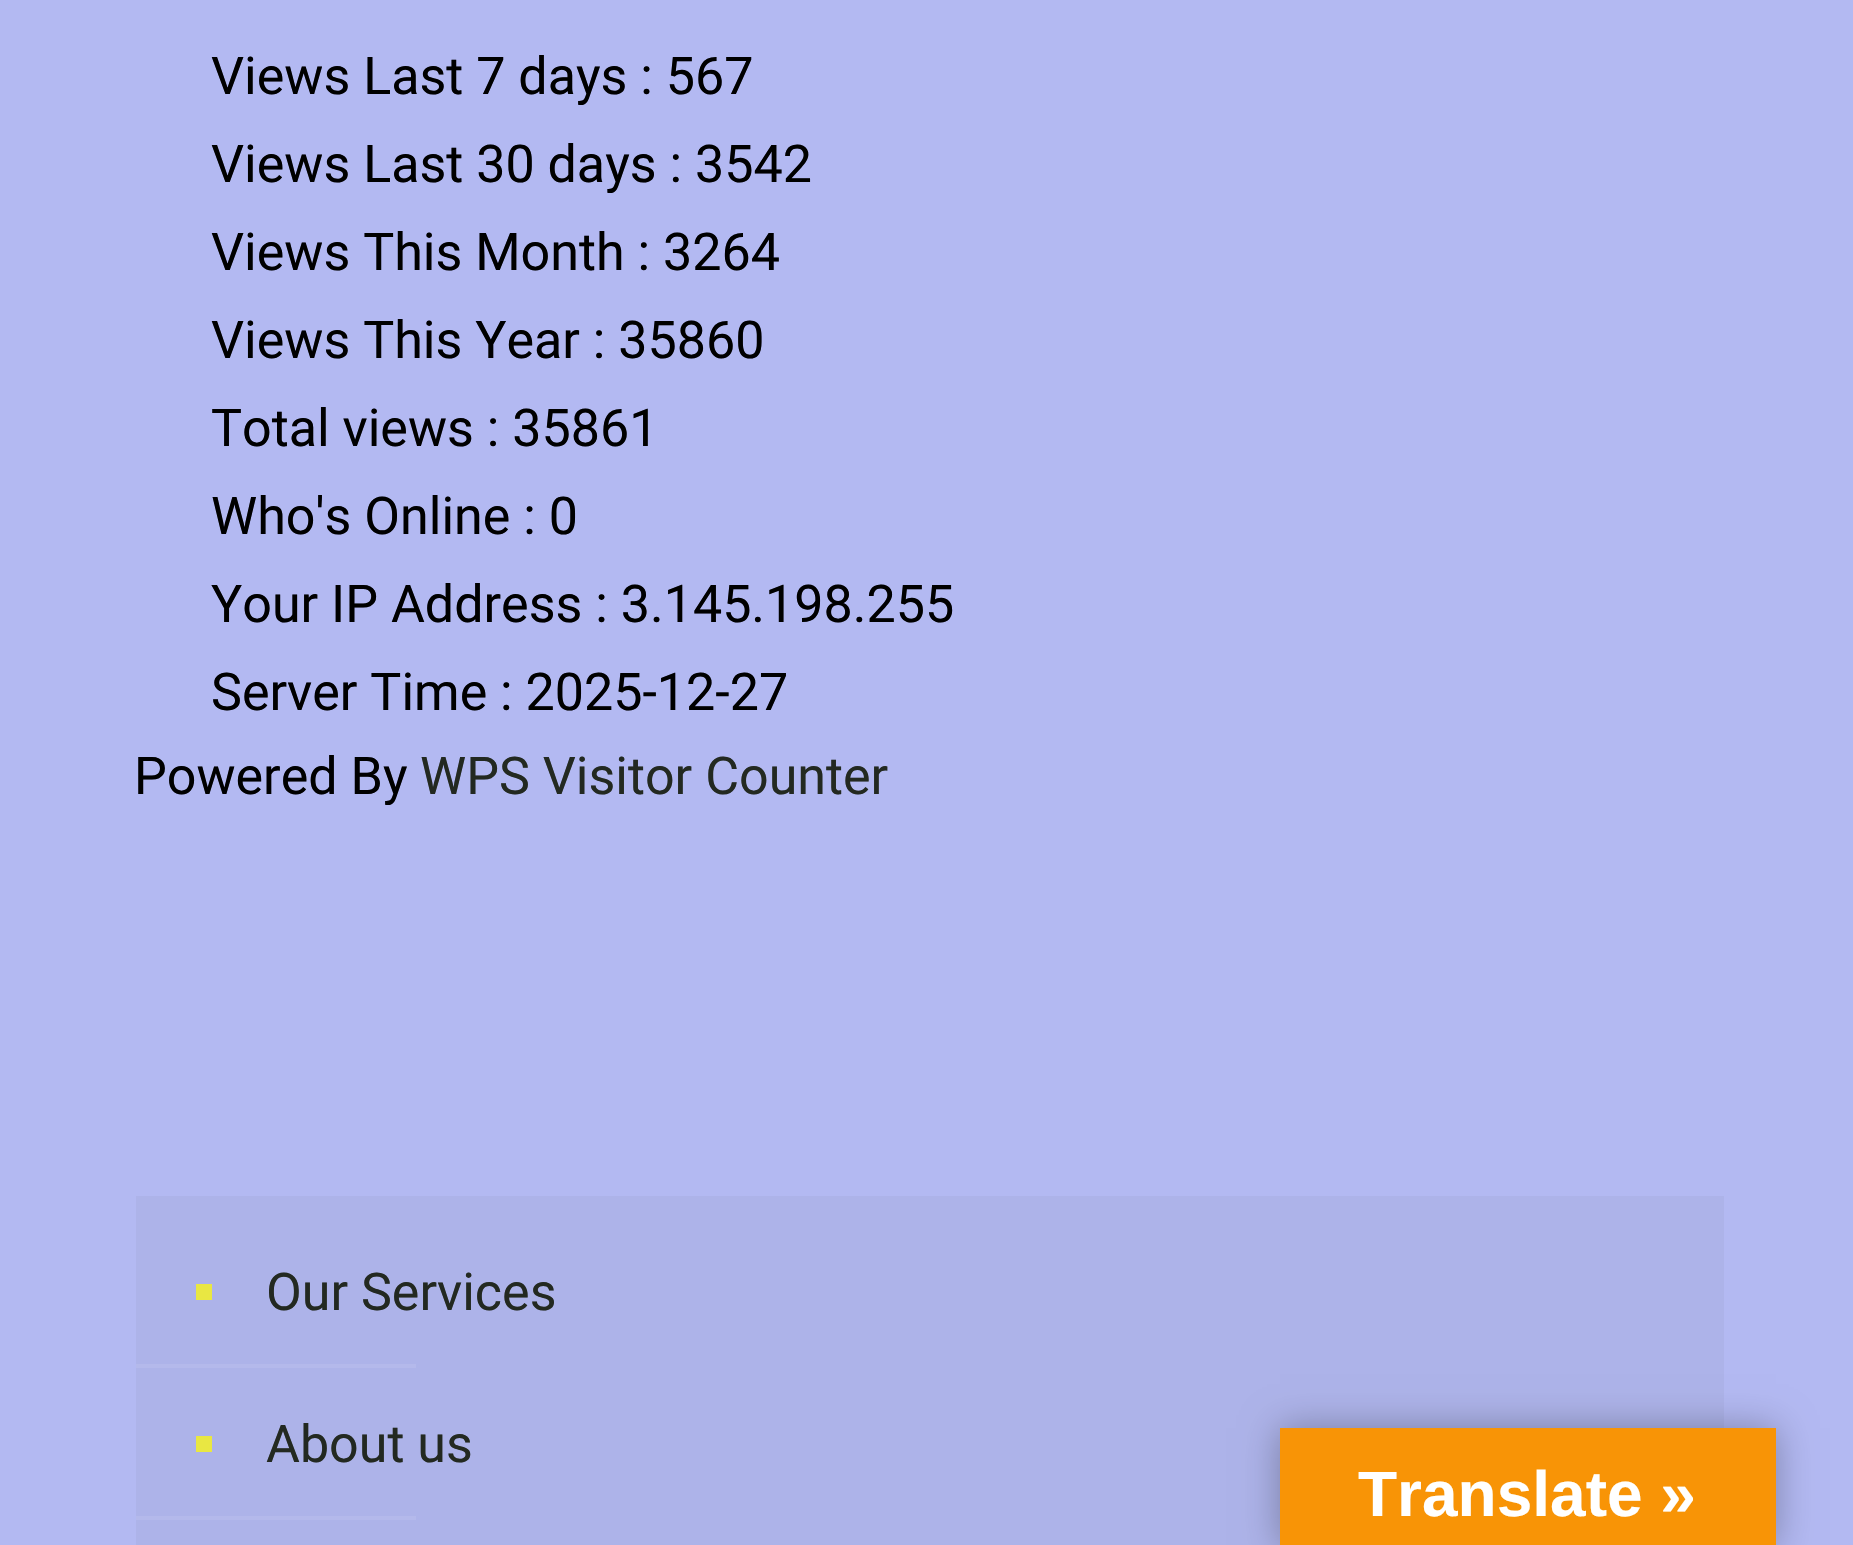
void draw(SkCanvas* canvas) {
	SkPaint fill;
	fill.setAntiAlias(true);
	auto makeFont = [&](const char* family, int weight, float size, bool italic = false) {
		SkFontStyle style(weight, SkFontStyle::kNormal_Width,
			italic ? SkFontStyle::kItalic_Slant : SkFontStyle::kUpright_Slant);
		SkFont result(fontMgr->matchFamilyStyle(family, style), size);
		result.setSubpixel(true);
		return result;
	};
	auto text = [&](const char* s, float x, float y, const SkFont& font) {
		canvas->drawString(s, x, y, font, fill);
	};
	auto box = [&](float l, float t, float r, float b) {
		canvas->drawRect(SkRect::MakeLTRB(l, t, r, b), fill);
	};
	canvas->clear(0xFFB3B9F2);
	fill.setColor(0xFFADB3E9);
	box(136, 1196, 1724, 1545);
	fill.setColor(0xFFE9E742);
	box(196, 1284, 212, 1300);
	fill.setColor(0xFFB4B9EB);
	box(136, 1364, 416, 1368);
	fill.setColor(0xFFE9E742);
	box(196, 1436, 212, 1452);
	fill.setColor(0xFFB4B9EB);
	box(136, 1516, 416, 1520);
	fill.setColor(0x4D000000);
	fill.setMaskFilter(SkMaskFilter::MakeBlur(kNormal_SkBlurStyle, 18));
	canvas->drawRect(SkRect::MakeLTRB(1280, 1428, 1776, 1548), fill);
	fill.setMaskFilter(nullptr);
	fill.setColor(0xFFF89406);
	box(1280, 1428, 1776, 1545);
	auto font1 = makeFont("Roboto", 400, 52);
	fill.setColor(0xFF000000);
	text("Views Last 7 days : 567", 211, 94, font1);
	text("Views Last 30 days : 3542", 211, 182, font1);
	text("Views This Month : 3264", 211, 270, font1);
	text("Views This Year : 35860", 211, 358, font1);
	text("Total views : 35861", 211, 446, font1);
	text("Who's Online : 0", 211, 534, font1);
	text("Your IP Address : 3.145.198.255", 211, 622, font1);
	text("Server Time : 2025-12-27", 211, 710, font1);
	text("Powered By", 134, 794, font1);
	fill.setColor(0xFF232921);
	text("WPS Visitor Counter", 420, 794, font1);
	text("Our Services", 266, 1310, font1);
	text("About us", 266, 1462, font1);
	auto font2 = makeFont("Liberation Sans", 700, 64);
	fill.setColor(0xFFFFFFFF);
	text("Translate »", 1358, 1516, font2);
}
